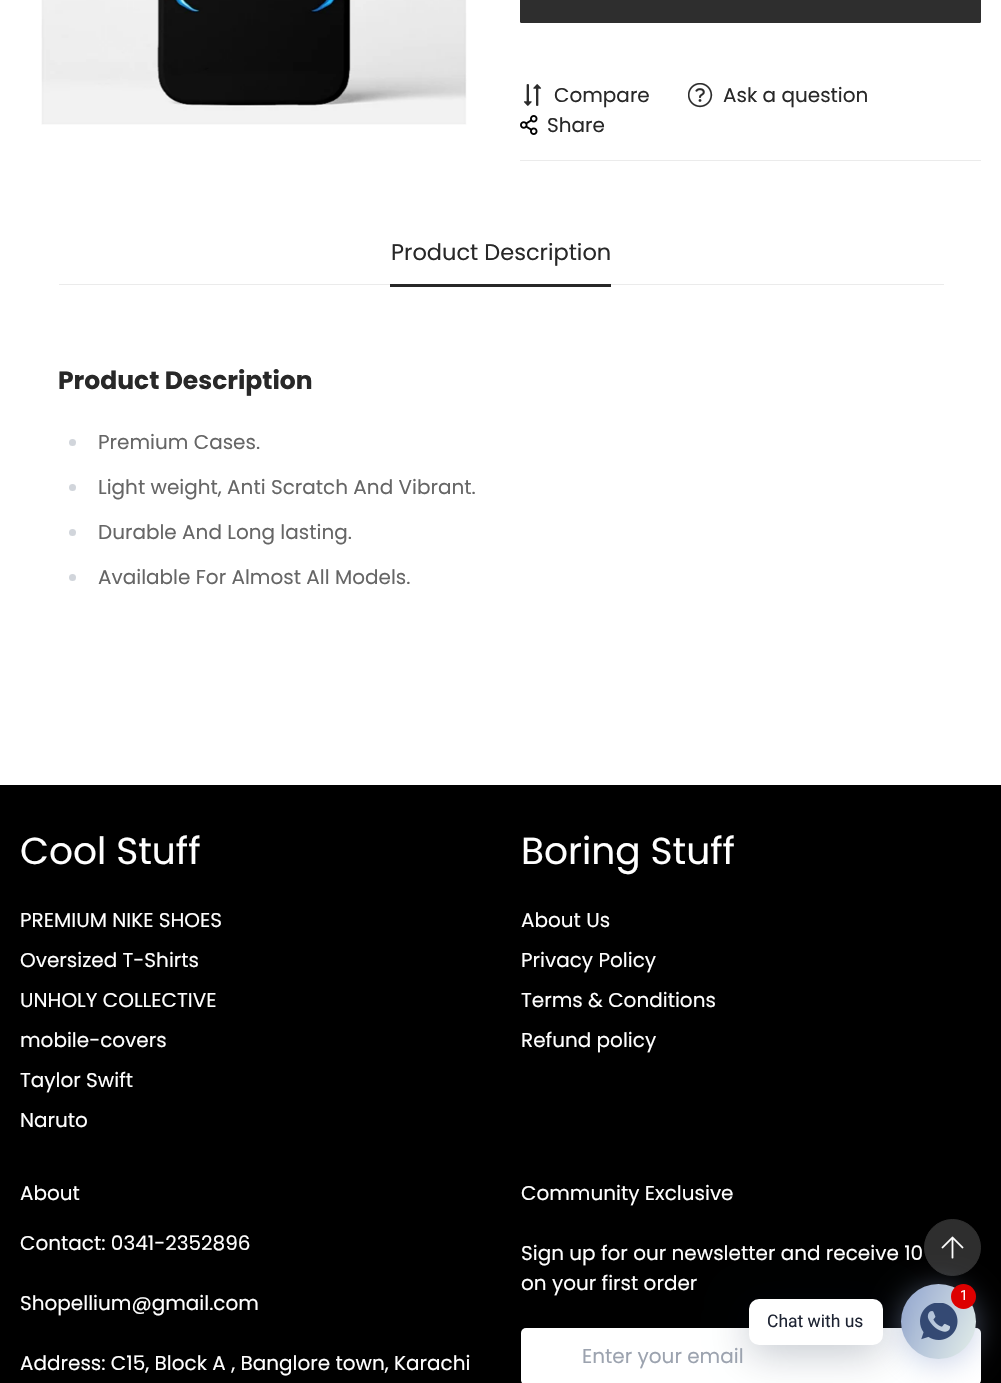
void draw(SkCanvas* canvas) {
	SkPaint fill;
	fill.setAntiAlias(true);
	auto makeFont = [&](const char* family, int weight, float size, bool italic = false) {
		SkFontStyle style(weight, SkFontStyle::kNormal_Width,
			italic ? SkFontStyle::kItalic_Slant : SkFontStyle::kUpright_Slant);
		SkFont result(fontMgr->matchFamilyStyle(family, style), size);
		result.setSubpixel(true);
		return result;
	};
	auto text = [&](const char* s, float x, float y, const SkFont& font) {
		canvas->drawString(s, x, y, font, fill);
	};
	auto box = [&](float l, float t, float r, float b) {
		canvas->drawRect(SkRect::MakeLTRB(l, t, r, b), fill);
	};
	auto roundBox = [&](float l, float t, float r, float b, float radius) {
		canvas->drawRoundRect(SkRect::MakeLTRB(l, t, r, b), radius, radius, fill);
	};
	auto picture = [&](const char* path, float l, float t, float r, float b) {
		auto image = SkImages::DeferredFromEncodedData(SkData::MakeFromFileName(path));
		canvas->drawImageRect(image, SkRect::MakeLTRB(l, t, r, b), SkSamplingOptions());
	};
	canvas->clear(0xFFFFFFFF);
	picture("image0.png", 41, 0, 467, 125);
	fill.setColor(0xFF2E2E2E);
	canvas->drawRoundRect(SkRect::MakeLTRB(520.5f, -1.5f, 980.5f, 22.5f), 0.5f, 0.5f, fill);
	fill.setStyle(SkPaint::kStroke_Style);
	fill.setStrokeWidth(1);
	canvas->drawRoundRect(SkRect::MakeLTRB(520.5f, -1.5f, 980.5f, 22.5f), 0.5f, 0.5f, fill);
	fill.setStyle(SkPaint::kFill_Style);
	fill.setColor(0xFFEBEBEB);
	box(520, 160, 981, 161);
	picture("image1.png", 523, 84, 542, 106);
	picture("image2.png", 688, 83, 713, 108);
	picture("image3.png", 520, 115, 538, 135);
	box(59, 284, 944, 285);
	fill.setColor(0xFF282828);
	box(390, 284, 611, 287);
	fill.setColor(0xFFD1D5DB);
	canvas->drawCircle(72.5f, 442.5f, 3.5f, fill);
	canvas->drawCircle(72.5f, 487.5f, 3.5f, fill);
	canvas->drawCircle(72.5f, 532.5f, 3.5f, fill);
	canvas->drawCircle(72.5f, 577.5f, 3.5f, fill);
	fill.setColor(0xFF000000);
	box(0, 785, 1001, 1383);
	fill.setColor(0xFFFFFFFF);
	roundBox(521, 1328, 981, 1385, 5);
	fill.setColor(0xFF2E2E2E);
	canvas->drawCircle(952.5f, 1247.5f, 28, fill);
	fill.setStyle(SkPaint::kStroke_Style);
	canvas->drawCircle(952.5f, 1247.5f, 28, fill);
	picture("image4.png", 941, 1236, 964, 1259);
	fill.setStyle(SkPaint::kFill_Style);
	fill.setColor(0x8093A5CF);
	fill.setMaskFilter(SkMaskFilter::MakeBlur(kNormal_SkBlurStyle, 15));
	canvas->drawRoundRect(SkRect::MakeLTRB(901, 1289, 976, 1364), 37.5f, 37.5f, fill);
	fill.setMaskFilter(nullptr);
	{
		const SkColor colors[] = {0xFF93A5CF, 0xFFE4EFE9};
		const float stops[] = {0, 1};
		const SkPoint ends[] = {{894, 1300}, {984, 1342}};
		fill.setShader(SkGradientShader::MakeLinear(ends, colors, stops, 2, SkTileMode::kClamp));
		fill.setAlpha(255);
	}
	canvas->drawCircle(938.5f, 1321.5f, 37.5f, fill);
	fill.setShader(nullptr);
	fill.setColor(0x3D00122E);
	fill.setMaskFilter(SkMaskFilter::MakeBlur(kNormal_SkBlurStyle, 20));
	canvas->drawRoundRect(SkRect::MakeLTRB(749, 1306, 883, 1353), 10, 10, fill);
	fill.setMaskFilter(nullptr);
	picture("image5.png", 920, 1303, 958, 1340);
	fill.setColor(0xFFDD0000);
	canvas->drawCircle(963.5f, 1296.5f, 12.5f, fill);
	fill.setColor(0xFFFFFFFF);
	roundBox(749, 1299, 883, 1345, 10);
	auto font1 = makeFont("Poppins", 400, 20);
	fill.setColor(0xFF282828);
	text("Compare", 554, 102, font1);
	text("Ask a question", 723, 102, font1);
	text("Share", 547, 132, font1);
	auto font2 = makeFont("Poppins", 400, 22.5f);
	text("Product Description", 391, 260, font2);
	auto font3 = makeFont("Poppins", 700, 25);
	text("Product Description", 58, 389, font3);
	fill.setColor(0xFF666666);
	text("Premium Cases.", 98, 449, font1);
	text("Light weight, Anti Scratch And Vibrant.", 98, 494, font1);
	text("Durable And Long lasting.", 98, 539, font1);
	text("Available For Almost All Models.", 98, 584, font1);
	auto font4 = makeFont("Poppins", 400, 37.5f);
	fill.setColor(0xFFFFFFFF);
	text("Cool Stuff", 20, 864, font4);
	text("PREMIUM NIKE SHOES", 20, 927, font1);
	text("Oversized T-Shirts", 20, 967, font1);
	text("UNHOLY COLLECTIVE", 20, 1007, font1);
	text("mobile-covers", 20, 1047, font1);
	text("Taylor Swift", 20, 1087, font1);
	text("Naruto", 20, 1127, font1);
	text("Boring Stuff", 521, 864, font4);
	text("About Us", 521, 927, font1);
	text("Privacy Policy", 521, 967, font1);
	text("Terms & Conditions", 521, 1007, font1);
	text("Refund policy", 521, 1047, font1);
	text("About", 20, 1200, font1);
	text("Contact: 0341-2352896", 20, 1250, font1);
	text("Shopellium@gmail.com", 20, 1310, font1);
	text("Address: C15, Block A , Banglore town, Karachi", 20, 1370, font1);
	text("Community Exclusive", 521, 1200, font1);
	text("Sign up for our newsletter and receive 10", 521, 1260, font1);
	text("on your first order", 521, 1290, font1);
	fill.setColor(0xFF9CA3AF);
	text("Enter your email", 582, 1363, font1);
	auto font5 = makeFont("Roboto", 400, 14);
	fill.setColor(0xFFFFFFFF);
	text("1", 960, 1300, font5);
	auto font6 = makeFont("Roboto", 400, 17.5f);
	fill.setColor(0xFF1E2433);
	text("Chat with us", 767, 1327, font6);
}
